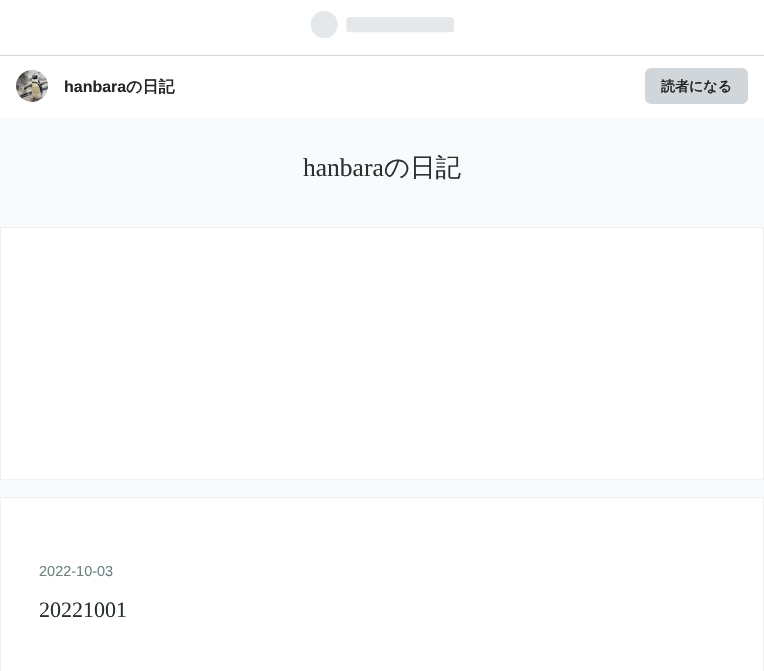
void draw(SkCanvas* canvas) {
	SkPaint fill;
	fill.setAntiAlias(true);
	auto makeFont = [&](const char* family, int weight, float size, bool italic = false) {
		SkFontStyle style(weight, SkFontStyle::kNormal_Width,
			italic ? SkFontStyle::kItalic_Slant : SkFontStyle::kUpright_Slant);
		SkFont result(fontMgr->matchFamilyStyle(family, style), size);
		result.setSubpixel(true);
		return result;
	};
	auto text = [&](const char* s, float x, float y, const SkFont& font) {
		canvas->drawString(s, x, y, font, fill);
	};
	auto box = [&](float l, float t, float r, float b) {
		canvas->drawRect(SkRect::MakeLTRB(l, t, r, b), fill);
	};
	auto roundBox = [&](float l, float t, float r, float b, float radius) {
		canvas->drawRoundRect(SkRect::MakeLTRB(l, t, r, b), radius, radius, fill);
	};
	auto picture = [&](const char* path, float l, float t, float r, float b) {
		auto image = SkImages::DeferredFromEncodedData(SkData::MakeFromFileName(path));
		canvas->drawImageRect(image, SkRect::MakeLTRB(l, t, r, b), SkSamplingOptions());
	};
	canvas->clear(0xFFF9FAFB);
	fill.setColor(0xFFFFFFFF);
	box(0, 0, 764, 55);
	fill.setColor(0xFFD2D8DD);
	box(0, 55, 764, 56);
	picture("image0.png", 311, 11, 454, 38);
	fill.setColor(0xFFFFFFFF);
	box(0, 56, 764, 117);
	picture("image1.png", 16, 70, 48, 102);
	fill.setColor(0xFFD1D6DA);
	roundBox(645, 68, 748, 104, 6);
	fill.setColor(0xFFFFFFFF);
	canvas->drawRect(SkRect::MakeLTRB(0.5f, 227.5f, 763.5f, 479.5f), fill);
	fill.setStyle(SkPaint::kStroke_Style);
	fill.setStrokeWidth(1);
	fill.setColor(0xFFF0F1F1);
	canvas->drawRect(SkRect::MakeLTRB(0.5f, 227.5f, 763.5f, 479.5f), fill);
	fill.setStyle(SkPaint::kFill_Style);
	fill.setColor(0xFFFFFFFF);
	canvas->drawRect(SkRect::MakeLTRB(0.5f, 497.5f, 763.5f, 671.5f), fill);
	fill.setStyle(SkPaint::kStroke_Style);
	fill.setColor(0xFFF0F1F1);
	canvas->drawRect(SkRect::MakeLTRB(0.5f, 497.5f, 763.5f, 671.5f), fill);
	auto font1 = makeFont("Liberation Sans", 700, 16);
	fill.setStyle(SkPaint::kFill_Style);
	fill.setColor(0xFF242527);
	text("hanbara", 64, 92, font1);
	auto font2 = makeFont("WenQuanYi Zen Hei", 700, 16);
	text("の日記", 126, 92, font2);
	auto font3 = makeFont("WenQuanYi Zen Hei", 700, 14);
	text("読者になる", 661, 91, font3);
	auto font4 = makeFont("Liberation Serif", 400, 25.5f);
	fill.setColor(0xFF293030);
	text("hanbara", 303, 176, font4);
	auto font5 = makeFont("WenQuanYi Zen Hei", 500, 25.5f);
	text("の日記", 384, 176, font5);
	auto font6 = makeFont("Liberation Sans", 400, 14.5f);
	fill.setColor(0xFF6F8383);
	text("2022-10-03", 39, 576, font6);
	auto font7 = makeFont("Liberation Serif", 400, 22);
	fill.setColor(0xFF293030);
	text("20221001", 39, 617, font7);
}
